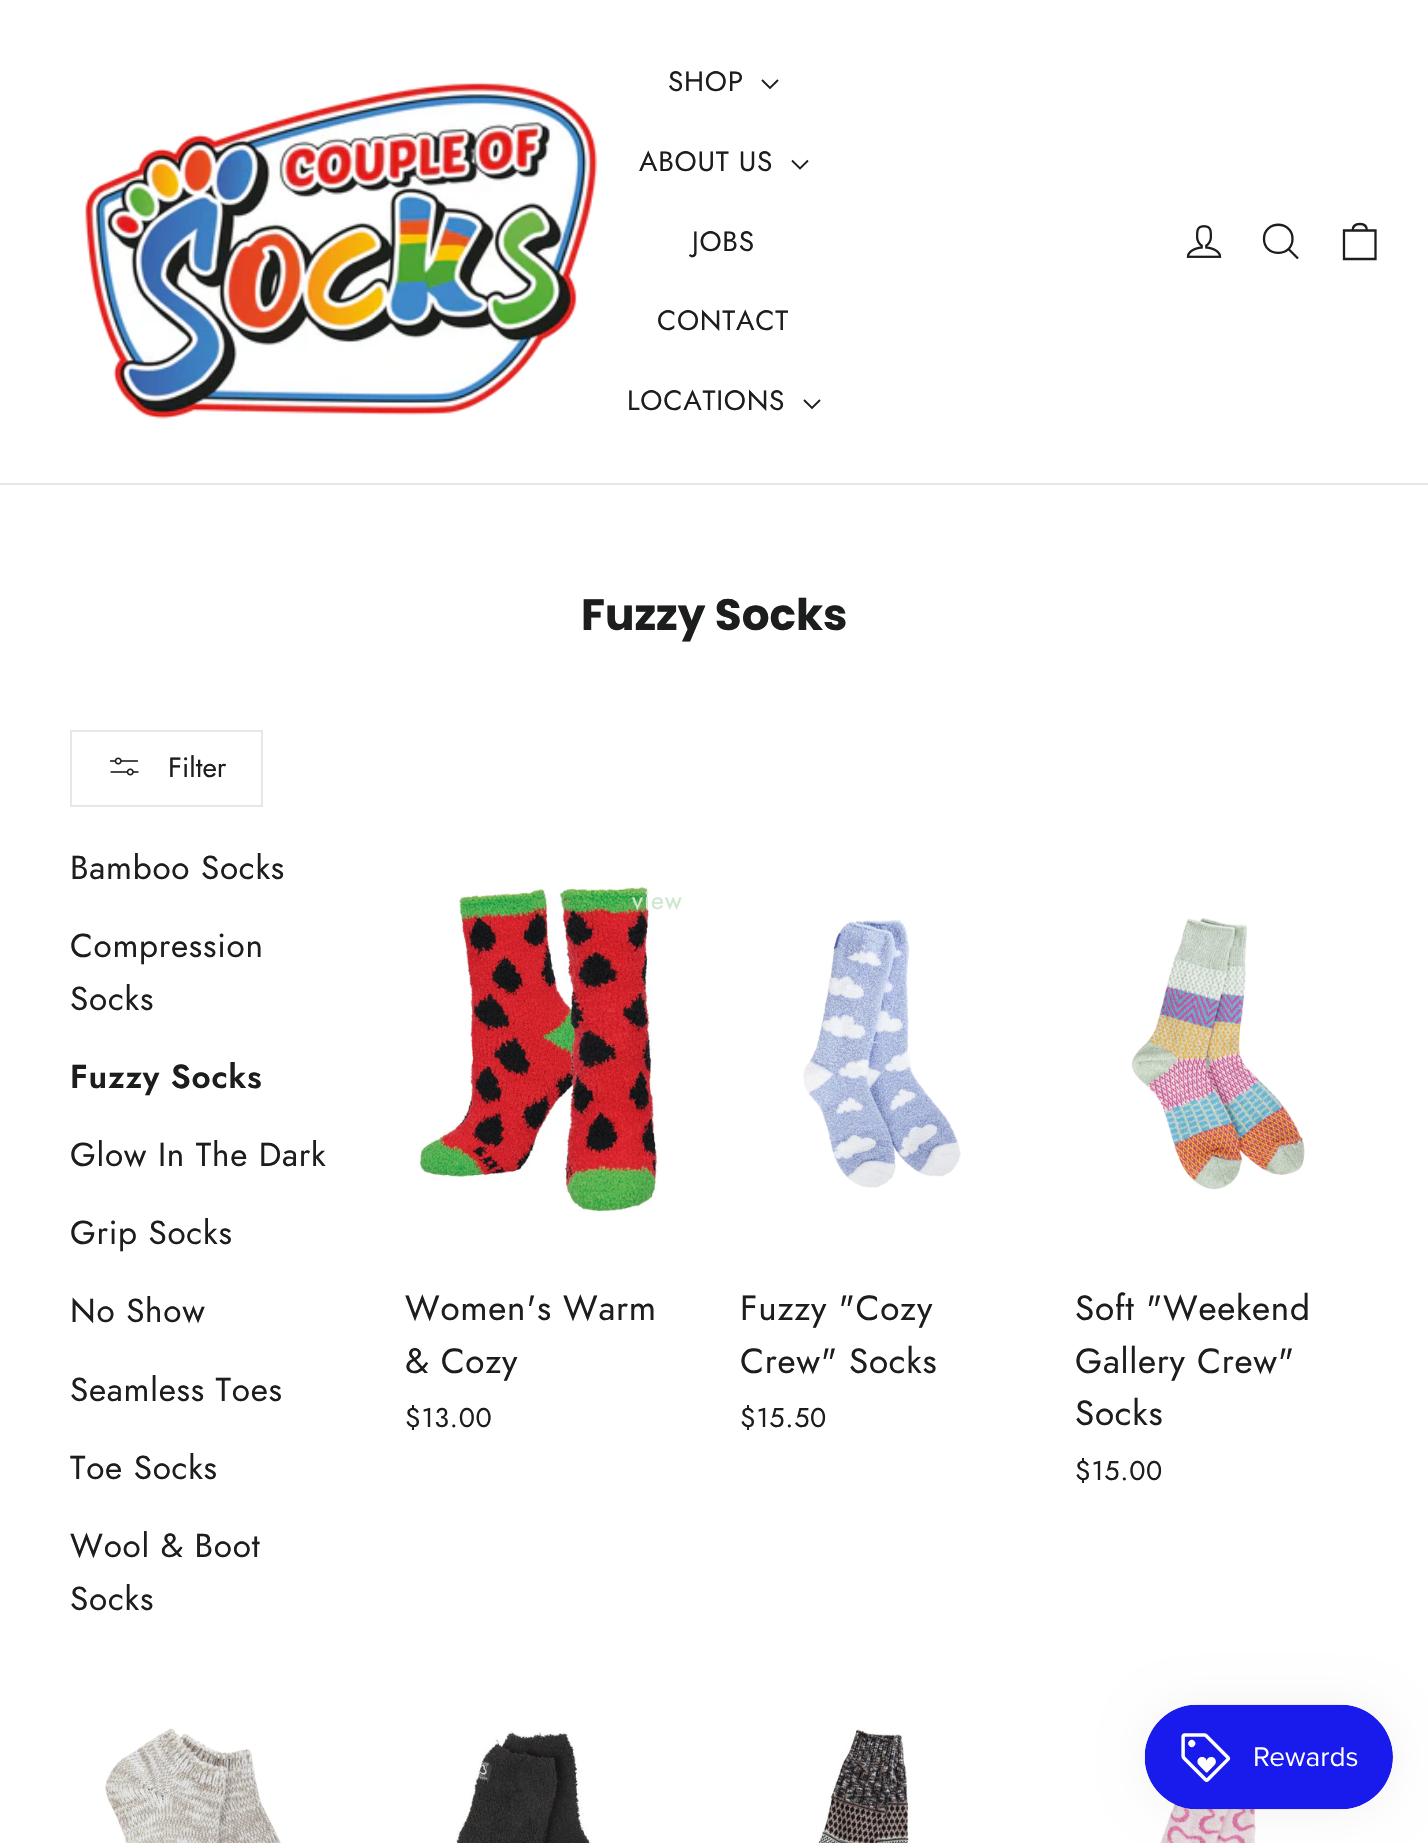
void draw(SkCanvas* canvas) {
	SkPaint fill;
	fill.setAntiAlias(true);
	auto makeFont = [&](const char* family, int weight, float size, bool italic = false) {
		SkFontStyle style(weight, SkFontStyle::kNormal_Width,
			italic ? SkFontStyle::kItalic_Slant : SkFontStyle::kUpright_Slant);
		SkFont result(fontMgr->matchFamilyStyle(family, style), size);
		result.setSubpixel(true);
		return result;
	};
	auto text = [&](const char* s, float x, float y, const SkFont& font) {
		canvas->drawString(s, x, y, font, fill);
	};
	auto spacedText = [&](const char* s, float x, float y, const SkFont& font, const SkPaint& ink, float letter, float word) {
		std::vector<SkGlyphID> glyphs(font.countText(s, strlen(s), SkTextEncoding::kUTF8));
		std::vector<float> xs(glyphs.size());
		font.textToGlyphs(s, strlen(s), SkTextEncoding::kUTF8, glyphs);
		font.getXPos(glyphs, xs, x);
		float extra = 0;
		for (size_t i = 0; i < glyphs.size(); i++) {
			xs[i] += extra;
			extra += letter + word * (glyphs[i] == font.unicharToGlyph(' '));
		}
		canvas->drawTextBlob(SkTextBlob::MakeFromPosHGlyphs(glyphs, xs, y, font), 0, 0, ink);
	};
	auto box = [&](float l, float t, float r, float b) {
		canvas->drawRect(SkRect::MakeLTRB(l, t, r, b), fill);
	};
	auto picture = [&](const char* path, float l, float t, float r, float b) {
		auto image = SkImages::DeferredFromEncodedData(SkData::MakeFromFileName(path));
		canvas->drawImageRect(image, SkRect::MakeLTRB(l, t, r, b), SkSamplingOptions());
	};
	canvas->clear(0xFFFFFFFF);
	fill.setColor(0xFFE8E8E1);
	box(0, 483, 1428, 485);
	picture("image0.png", 85, 82, 598, 419);
	fill.setStyle(SkPaint::kStroke_Style);
	fill.setStrokeWidth(1.9f);
	fill.setColor(0xFF1C1D1D);
	canvas->drawPath(SkPathBuilder().moveTo(762, 80).lineTo(770, 88).lineTo(778, 80).detach(), fill);
	canvas->drawPath(SkPathBuilder().moveTo(792, 160.5f).lineTo(800, 168.5f).lineTo(808, 160.5f).detach(), fill);
	canvas->drawPath(SkPathBuilder().moveTo(804, 400).lineTo(812, 408).lineTo(820, 400).detach(), fill);
	picture("image1.png", 1186, 225, 1222, 258);
	fill.setStrokeWidth(2.3f);
	canvas->drawPath(SkPathBuilder().moveTo(1292.5f, 239).cubicTo(1292.5f, 257.5f, 1264, 257.5f, 1264, 239).cubicTo(1264, 220, 1292.5f, 220, 1292.5f, 239).close().moveTo(1298, 258.5f).lineTo(1288.5f, 249).detach(), fill);
	canvas->drawPath(SkPathBuilder().moveTo(1344, 230.5f).lineTo(1375.5f, 230.5f).lineTo(1375.5f, 259).lineTo(1344, 259).close().moveTo(1352.5f, 231).cubicTo(1352.5f, 225.5f, 1355.5f, 224, 1360, 224).cubicTo(1364, 224, 1367, 225.5f, 1367, 231).detach(), fill);
	fill.setStrokeWidth(2);
	fill.setColor(0xFFE8E8E1);
	canvas->drawRect(SkRect::MakeLTRB(71, 731, 262, 806), fill);
	picture("image2.png", 110, 757, 139, 776);
	picture("image3.png", 419, 884, 658, 1212);
	picture("image4.png", 803, 919, 961, 1188);
	picture("image5.png", 1131, 917, 1305, 1190);
	picture("image6.png", 105, 1728, 281, 1843);
	picture("image7.png", 456, 1730, 592, 1843);
	picture("image8.png", 816, 1729, 910, 1843);
	picture("image9.png", 1160, 1804, 1256, 1843);
	fill.setStyle(SkPaint::kFill_Style);
	fill.setColor(0x0D000000);
	fill.setMaskFilter(SkMaskFilter::MakeBlur(kNormal_SkBlurStyle, 22));
	canvas->drawRoundRect(SkRect::MakeLTRB(1145, 1705, 1393, 1810), 52.5f, 52.5f, fill);
	fill.setMaskFilter(nullptr);
	picture("image10.png", 1144, 1704, 1393, 1810);
	auto font1 = makeFont("Jost", 400, 28);
	fill.setColor(0xFF1C1D1D);
	spacedText("SHOP", 668, 91, font1, fill, 0.75f, 0);
	spacedText("ABOUT US", 639, 171, font1, fill, 0.75f, 0);
	spacedText("JOBS", 692, 251, font1, fill, 0.75f, 0);
	spacedText("CONTACT", 657, 330, font1, fill, 0.75f, 0);
	spacedText("LOCATIONS", 627, 410, font1, fill, 0.75f, 0);
	auto font2 = makeFont("Poppins", 700, 43.75f);
	text("Fuzzy Socks", 581, 630, font2);
	text("Filter", 168, 777, font1);
	auto font3 = makeFont("Jost", 400, 33.25f);
	spacedText("Bamboo Socks", 70, 879, font3, fill, 0.75f, 0);
	spacedText("Compression", 70, 957, font3, fill, 0.75f, 0);
	spacedText("Socks", 70, 1010, font3, fill, 0.75f, 0);
	auto font4 = makeFont("Jost", 600, 33.25f);
	spacedText("Fuzzy Socks", 70, 1088, font4, fill, 0.75f, 0);
	spacedText("Glow In The Dark", 70, 1166, font3, fill, 0.75f, 0);
	spacedText("Grip Socks", 70, 1244, font3, fill, 0.75f, 0);
	spacedText("No Show", 70, 1322, font3, fill, 0.75f, 0);
	spacedText("Seamless Toes", 70, 1401, font3, fill, 0.75f, 0);
	spacedText("Toe Socks", 70, 1479, font3, fill, 0.75f, 0);
	spacedText("Wool & Boot", 70, 1557, font3, fill, 0.75f, 0);
	spacedText("Socks", 70, 1610, font3, fill, 0.75f, 0);
	auto font5 = makeFont("Jost", 400, 25);
	fill.setColor(0xFFCEE7CD);
	spacedText("view", 632, 909, font5, fill, 0.75f, 0);
	auto font6 = makeFont("Jost", 400, 35);
	fill.setColor(0xFF1C1D1D);
	spacedText("Women's Warm", 405, 1320, font6, fill, 0.75f, 0);
	spacedText("& Cozy", 405, 1373, font6, fill, 0.75f, 0);
	auto font7 = makeFont("Jost", 400, 27);
	spacedText("$13.00", 405, 1427, font7, fill, 0.75f, 0);
	spacedText("Fuzzy \"Cozy", 740, 1320, font6, fill, 0.75f, 0);
	spacedText("Crew\" Socks", 740, 1373, font6, fill, 0.75f, 0);
	spacedText("$15.50", 740, 1427, font7, fill, 0.75f, 0);
	spacedText("Soft \"Weekend", 1075, 1320, font6, fill, 0.75f, 0);
	spacedText("Gallery Crew\"", 1075, 1373, font6, fill, 0.75f, 0);
	spacedText("Socks", 1075, 1425, font6, fill, 0.75f, 0);
	spacedText("$15.00", 1075, 1480, font7, fill, 0.75f, 0);
}
